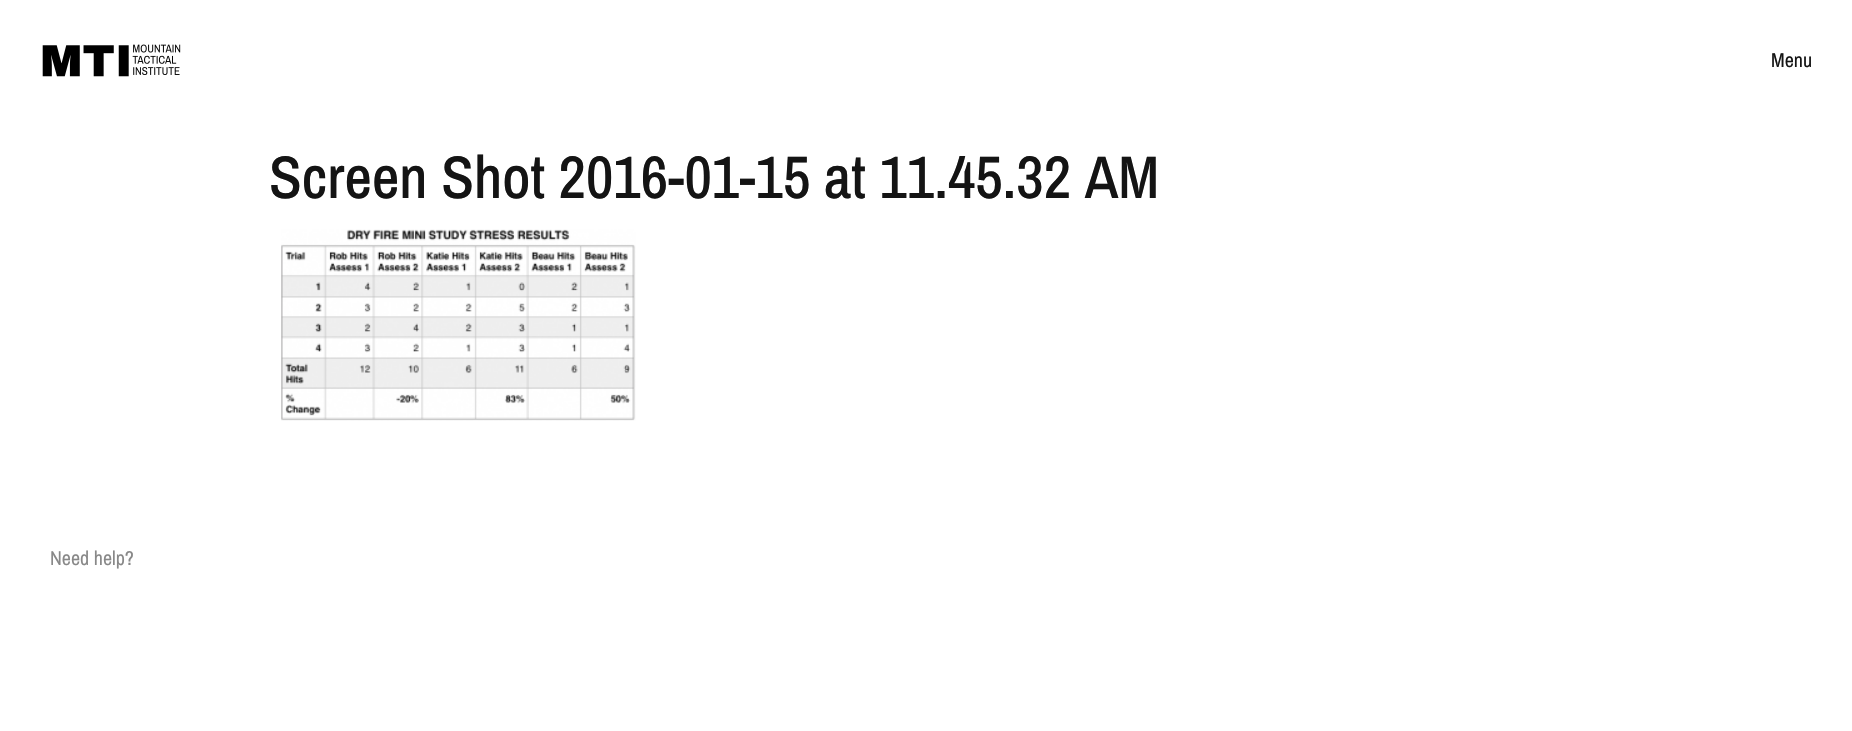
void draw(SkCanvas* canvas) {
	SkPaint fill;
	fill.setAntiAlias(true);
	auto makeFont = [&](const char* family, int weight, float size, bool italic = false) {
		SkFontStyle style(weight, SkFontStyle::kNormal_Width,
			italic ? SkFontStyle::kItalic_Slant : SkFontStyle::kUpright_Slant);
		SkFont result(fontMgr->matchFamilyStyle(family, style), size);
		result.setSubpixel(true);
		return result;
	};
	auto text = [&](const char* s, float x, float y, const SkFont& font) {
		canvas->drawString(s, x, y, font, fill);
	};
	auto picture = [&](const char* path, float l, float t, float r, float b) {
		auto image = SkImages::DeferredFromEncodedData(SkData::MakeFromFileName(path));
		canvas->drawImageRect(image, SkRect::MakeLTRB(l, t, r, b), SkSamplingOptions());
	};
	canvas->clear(0xFFFFFFFF);
	picture("image0.png", 42, 44, 181, 77);
	picture("image1.png", 281, 229, 636, 421);
	auto font1 = makeFont("Archivo Narrow", 400, 20);
	fill.setColor(0xFF141414);
	text("Menu", 1771, 67, font1);
	auto font2 = makeFont("Archivo Narrow", 500, 60);
	text("Screen Shot 2016-01-15 at 11.45.32 AM", 269, 198, font2);
	fill.setColor(0xFF888888);
	text("Need help?", 50, 565, font1);
}
